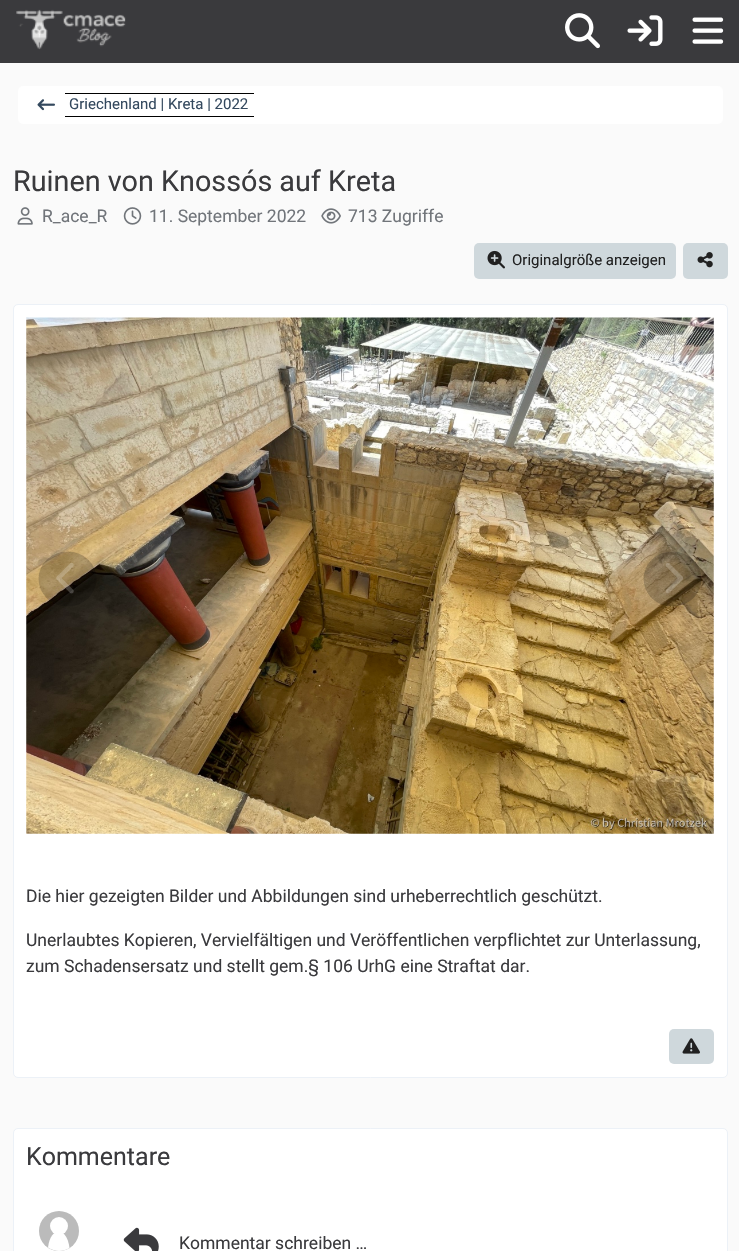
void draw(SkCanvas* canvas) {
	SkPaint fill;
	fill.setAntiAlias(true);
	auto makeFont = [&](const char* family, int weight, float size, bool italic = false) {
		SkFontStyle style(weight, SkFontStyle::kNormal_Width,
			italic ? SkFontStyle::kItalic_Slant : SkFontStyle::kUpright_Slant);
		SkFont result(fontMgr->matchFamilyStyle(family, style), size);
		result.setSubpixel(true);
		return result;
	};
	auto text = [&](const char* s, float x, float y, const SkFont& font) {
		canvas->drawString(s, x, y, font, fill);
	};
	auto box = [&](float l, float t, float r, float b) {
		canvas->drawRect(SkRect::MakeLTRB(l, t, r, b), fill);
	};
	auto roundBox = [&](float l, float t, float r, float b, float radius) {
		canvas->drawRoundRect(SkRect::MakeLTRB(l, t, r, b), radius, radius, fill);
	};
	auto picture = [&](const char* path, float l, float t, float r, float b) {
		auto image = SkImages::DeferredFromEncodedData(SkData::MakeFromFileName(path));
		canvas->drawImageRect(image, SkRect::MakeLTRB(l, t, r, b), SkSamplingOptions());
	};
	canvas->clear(0xFFFAFAFA);
	fill.setColor(0xFF3A3A3D);
	box(0, 0, 739, 63);
	picture("image0.png", 16, 9, 126, 50);
	picture("image1.png", 565, 13, 600, 49);
	picture("image2.png", 627, 15, 663, 46);
	picture("image3.png", 692, 17, 724, 44);
	fill.setColor(0xFFFFFFFF);
	roundBox(18, 86, 723, 124, 5);
	picture("image4.png", 37, 99, 55, 111);
	fill.setColor(0xFF000000);
	box(65, 93, 254, 94);
	box(65, 116, 254, 117);
	picture("image5.png", 17, 207, 33, 225);
	picture("image6.png", 123, 207, 142, 225);
	picture("image7.png", 321, 208, 341, 224);
	fill.setColor(0xFFCFD8DC);
	roundBox(474, 243, 676, 279, 5);
	picture("image8.png", 487, 250, 505, 269);
	roundBox(683, 243, 728, 279, 5);
	picture("image9.png", 697, 252, 713, 268);
	fill.setColor(0xFFFFFFFF);
	canvas->drawRoundRect(SkRect::MakeLTRB(13.5f, 304.5f, 727.5f, 1077.5f), 4.5f, 4.5f, fill);
	fill.setStyle(SkPaint::kStroke_Style);
	fill.setStrokeWidth(1);
	fill.setColor(0xFFECF1F7);
	canvas->drawRoundRect(SkRect::MakeLTRB(13.5f, 304.5f, 727.5f, 1077.5f), 4.5f, 4.5f, fill);
	picture("image10.png", 26, 317, 714, 834);
	fill.setStyle(SkPaint::kFill_Style);
	fill.setColor(0x33000000);
	canvas->drawOval(SkRect::MakeLTRB(38.5f, 551.5f, 96.5f, 606.5f), fill);
	picture("image11.png", 56, 562, 74, 594);
	canvas->drawOval(SkRect::MakeLTRB(643.5f, 551.5f, 701.5f, 606.5f), fill);
	picture("image12.png", 665, 563, 683, 594);
	fill.setColor(0xFFCFD8DC);
	roundBox(669, 1029, 714, 1064, 5);
	picture("image13.png", 682, 1038, 700, 1054);
	fill.setColor(0xFFFFFFFF);
	canvas->drawRoundRect(SkRect::MakeLTRB(13.5f, 1128.5f, 727.5f, 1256.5f), 4.5f, 4.5f, fill);
	fill.setStyle(SkPaint::kStroke_Style);
	fill.setColor(0xFFECF1F7);
	canvas->drawRoundRect(SkRect::MakeLTRB(13.5f, 1128.5f, 727.5f, 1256.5f), 4.5f, 4.5f, fill);
	fill.setStyle(SkPaint::kFill_Style);
	fill.setColor(0xFFBBBBBB);
	canvas->drawCircle(59, 1231, 20, fill);
	fill.setColor(0xFFFFFFFF);
	canvas->drawPath(SkPathBuilder().moveTo(69.5f, 1248).cubicTo(63, 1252, 54.5f, 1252, 48, 1247.5f).cubicTo(50.5f, 1226, 67, 1226, 69.5f, 1248).close().detach(), fill);
	canvas->drawCircle(59, 1226, 9, fill);
	picture("image14.png", 123, 1227, 159, 1251);
	auto font1 = makeFont("Roboto", 400, 15);
	fill.setColor(0xFF34495E);
	text("Griechenland | Kreta | 2022", 69, 109, font1);
	auto font2 = makeFont("Roboto", 400, 28.75f);
	fill.setColor(0xFF3A3A3D);
	text("Ruinen von Knossós auf Kreta", 13, 191, font2);
	auto font3 = makeFont("Roboto", 400, 17.5f);
	fill.setColor(0xFF71757A);
	text("R_ace_R", 42, 222, font3);
	text("11. September 2022", 149, 222, font3);
	text("713 Zugriffe", 348, 222, font3);
	fill.setColor(0xFF212121);
	text("Originalgröße anzeigen", 512, 265, font1);
	fill.setColor(0xFF3A3A3D);
	text("Die hier gezeigten Bilder und Abbildungen sind urheberrechtlich geschützt.", 26, 902, font3);
	text("Unerlaubtes Kopieren, Vervielfältigen und Veröffentlichen verpflichtet zur Unterlassung,", 26, 946, font3);
	text("zum Schadensersatz und stellt gem.§ 106 UrhG eine Straftat dar.", 26, 972, font3);
	auto font4 = makeFont("Roboto", 400, 25);
	text("Kommentare", 26, 1165, font4);
	text("Kommentar schreiben …", 179, 1249, font3);
}
